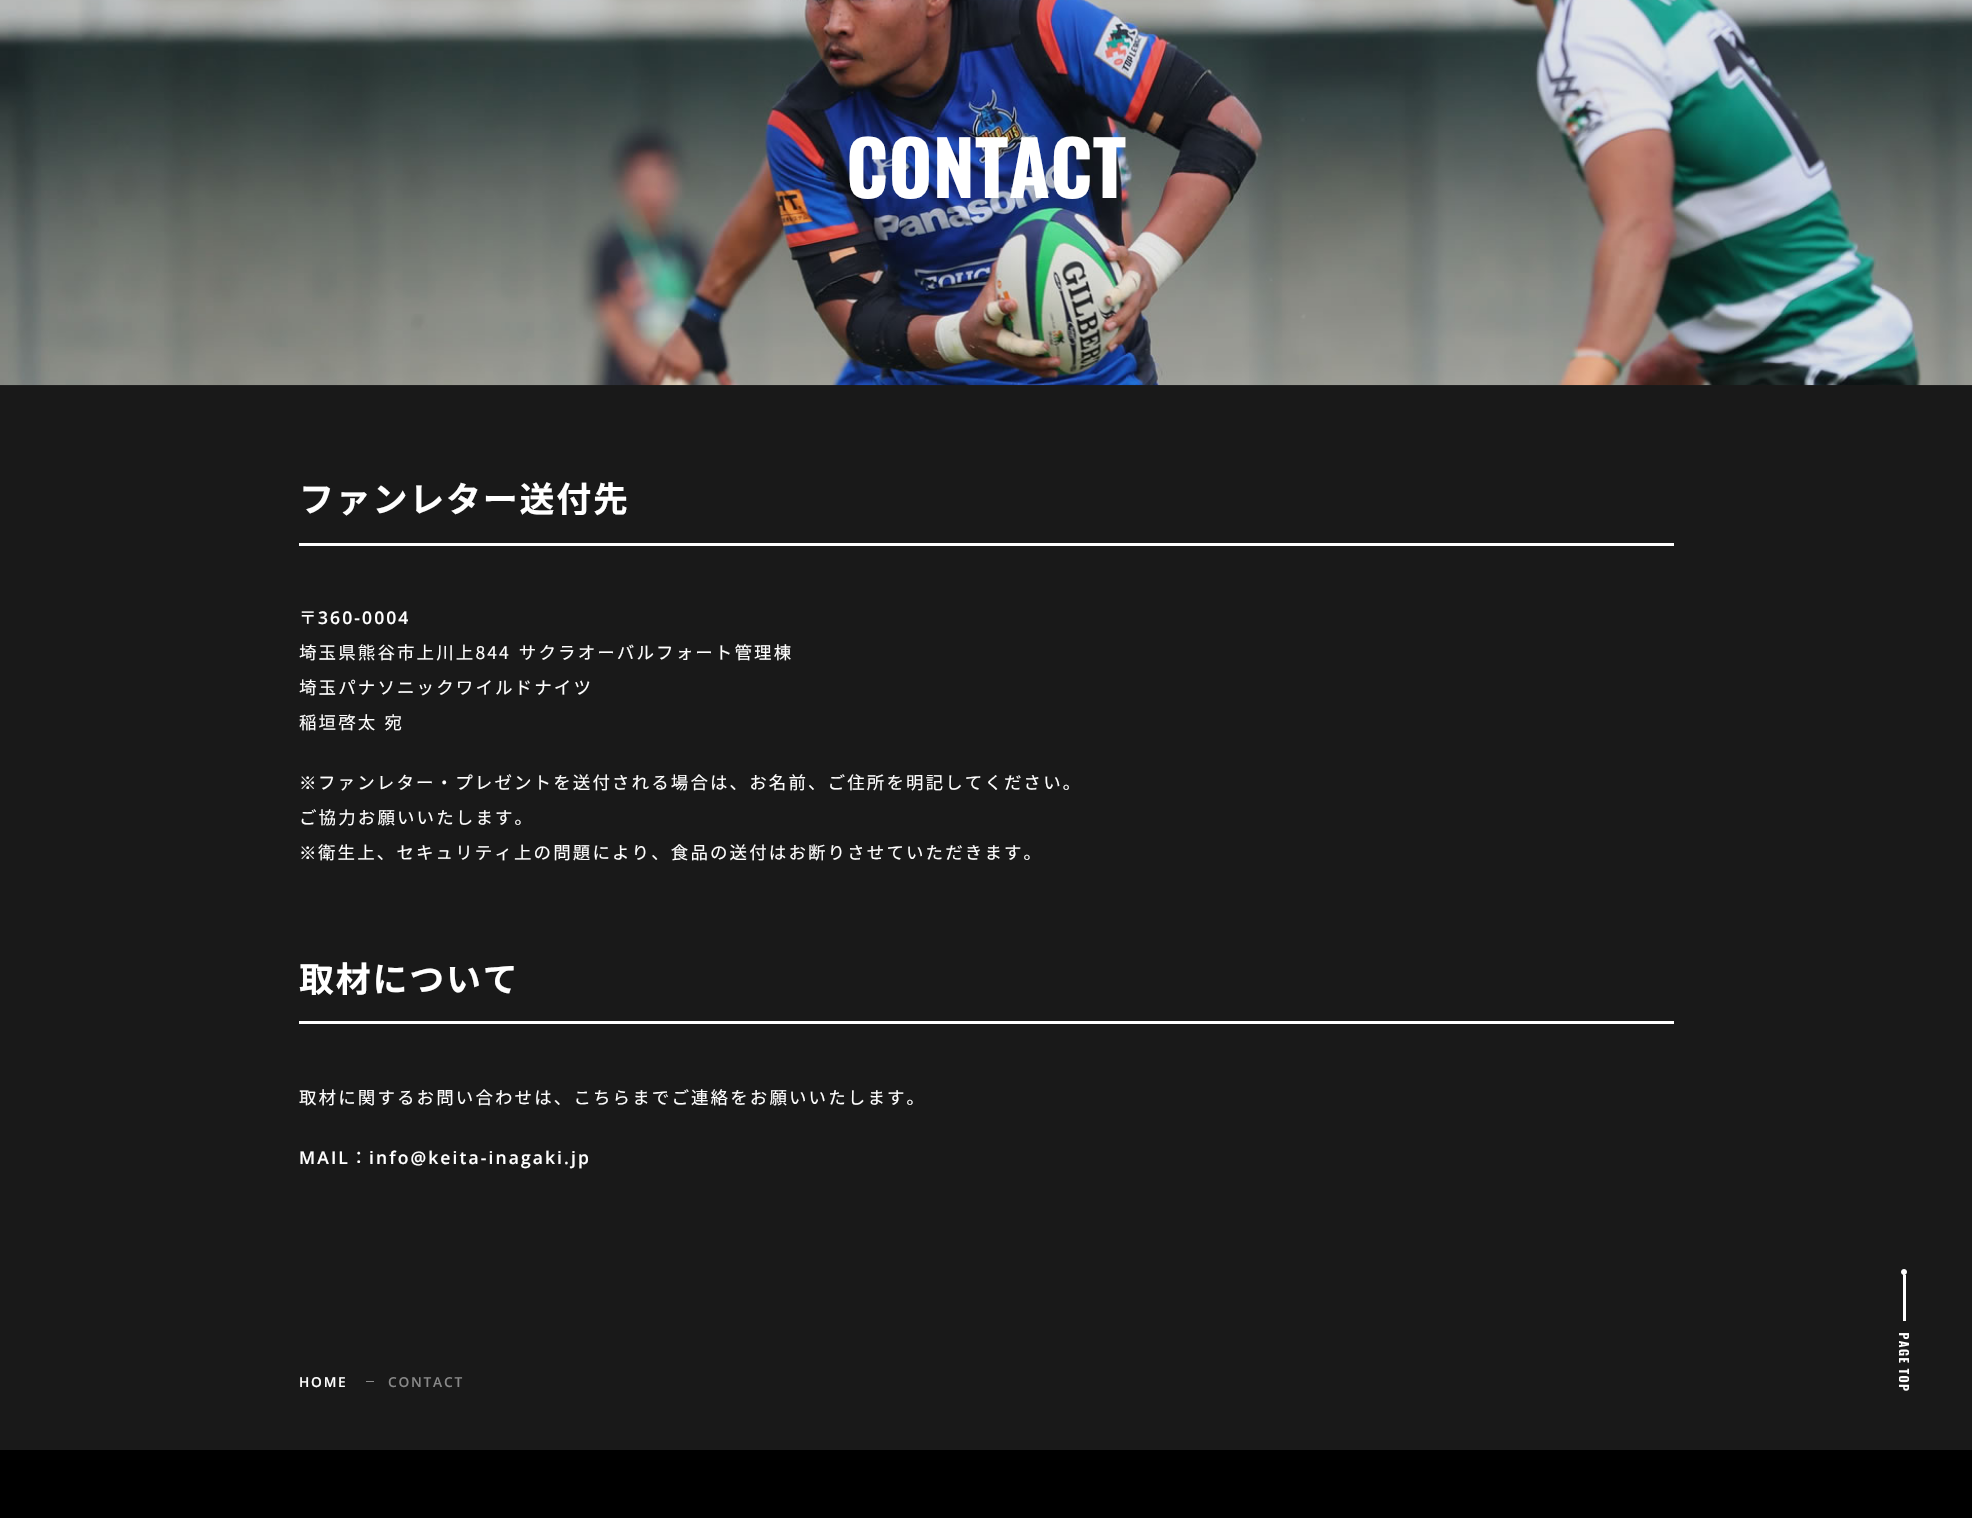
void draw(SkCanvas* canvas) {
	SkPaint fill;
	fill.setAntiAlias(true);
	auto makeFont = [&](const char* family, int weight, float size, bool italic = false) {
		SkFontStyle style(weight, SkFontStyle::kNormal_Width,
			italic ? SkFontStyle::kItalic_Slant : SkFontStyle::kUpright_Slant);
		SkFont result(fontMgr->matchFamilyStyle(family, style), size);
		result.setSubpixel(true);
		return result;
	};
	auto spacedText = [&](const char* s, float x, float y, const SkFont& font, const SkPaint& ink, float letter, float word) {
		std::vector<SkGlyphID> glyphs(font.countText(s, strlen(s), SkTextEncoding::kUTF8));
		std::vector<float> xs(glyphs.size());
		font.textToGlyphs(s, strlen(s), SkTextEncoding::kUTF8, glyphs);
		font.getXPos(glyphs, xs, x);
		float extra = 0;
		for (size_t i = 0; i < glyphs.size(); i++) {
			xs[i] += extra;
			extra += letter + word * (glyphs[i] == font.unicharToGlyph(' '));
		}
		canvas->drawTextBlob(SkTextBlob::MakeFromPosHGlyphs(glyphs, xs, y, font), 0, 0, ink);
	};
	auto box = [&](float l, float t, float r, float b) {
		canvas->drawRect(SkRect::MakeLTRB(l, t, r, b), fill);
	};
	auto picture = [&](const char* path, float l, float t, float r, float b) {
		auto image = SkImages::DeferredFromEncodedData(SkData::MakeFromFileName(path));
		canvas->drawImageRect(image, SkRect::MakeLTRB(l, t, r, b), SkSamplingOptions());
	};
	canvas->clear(0xFF191919);
	picture("image0.png", 0, 0, 1972, 386);
	fill.setColor(0xFFFFFFFF);
	box(299, 543, 1674, 546);
	box(299, 1021, 1674, 1024);
	fill.setColor(0xFF8C8C8C);
	box(366, 1381, 374, 1382);
	fill.setColor(0xFF000000);
	box(0, 1450, 1972, 1518);
	picture("image1.png", 1899, 1269, 1909, 1391);
	fill.setColor(0xFFFFFFFF);
	box(1905, 1275, 1906, 1321);
	auto font1 = makeFont("Oswald", 700, 75);
	spacedText("CONTACT", 846, 198, font1, fill, 0.25f, 0);
	auto font2 = makeFont("Noto Sans JP", 700, 35);
	spacedText("ファンレター送付先", 299, 512, font2, fill, 1.75f, 0);
	auto font3 = makeFont("Noto Sans JP", 400, 17.5f);
	spacedText("〒", 299, 624, font3, fill, 2.1f, 0);
	auto font4 = makeFont("Open Sans", 600, 17.5f);
	spacedText("360-0004", 318, 624, font4, fill, 2.1f, 0);
	spacedText("埼玉県熊谷市上川上844 サクラオーバルフォート管理棟", 299, 659, font3, fill, 2.1f, 2);
	spacedText("埼玉パナソニックワイルドナイツ", 299, 694, font3, fill, 2.1f, 0);
	spacedText("稲垣啓太 宛", 299, 729, font3, fill, 2.1f, 1);
	auto font5 = makeFont("WenQuanYi Zen Hei", 500, 17.5f);
	spacedText("※", 299, 789, font5, fill, 2.1f, 0);
	spacedText("ファンレター・プレゼントを送付される場合は、お名前、ご住所を明記してください。", 318, 789, font3, fill, 2.1f, 0);
	spacedText("ご協力お願いいたします。", 299, 824, font3, fill, 2.1f, 0);
	spacedText("※", 299, 859, font5, fill, 2.1f, 0);
	spacedText("衛生上、セキュリティ上の問題により、食品の送付はお断りさせていただきます。", 318, 859, font3, fill, 2.1f, 0);
	spacedText("取材について", 299, 992, font2, fill, 1.75f, 0);
	spacedText("取材に関するお問い合わせは、こちらまでご連絡をお願いいたします。", 299, 1104, font3, fill, 2.1f, 0);
	spacedText("MAIL", 299, 1164, font4, fill, 2.1f, 0);
	spacedText("：", 350, 1164, font3, fill, 2.1f, 0);
	spacedText("info@keita-inagaki.jp", 369, 1164, font4, fill, 2.1f, 0);
	auto font6 = makeFont("Open Sans", 600, 13.75f);
	spacedText("HOME", 299, 1387, font6, fill, 1.75f, 0);
	fill.setColor(0xFF888888);
	spacedText("CONTACT", 388, 1387, font6, fill, 1.75f, 0);
}
